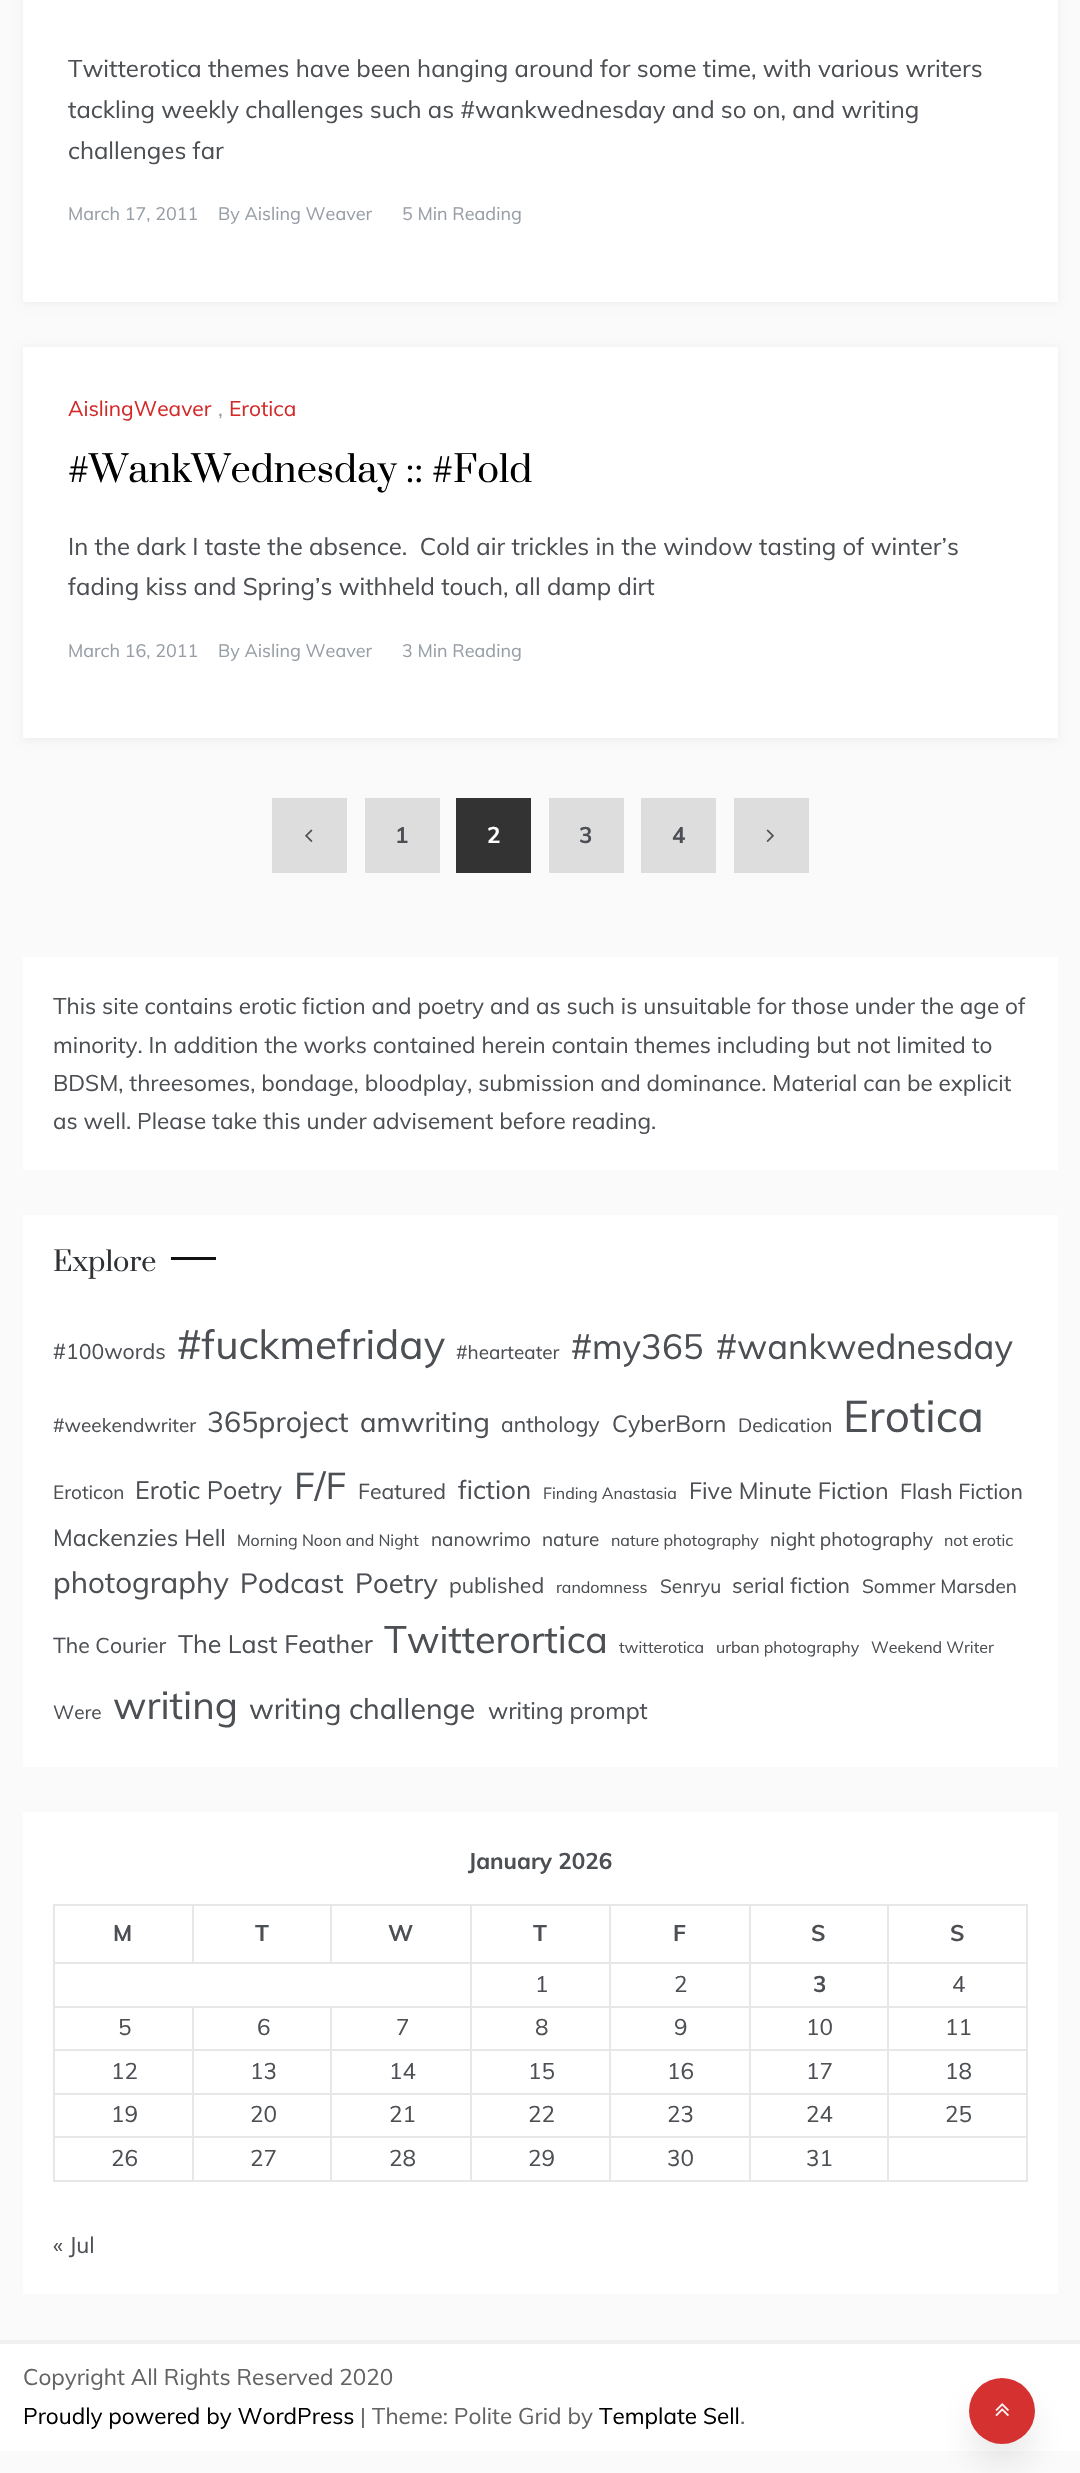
void draw(SkCanvas* canvas) {
	SkPaint fill;
	fill.setAntiAlias(true);
	auto makeFont = [&](const char* family, int weight, float size, bool italic = false) {
		SkFontStyle style(weight, SkFontStyle::kNormal_Width,
			italic ? SkFontStyle::kItalic_Slant : SkFontStyle::kUpright_Slant);
		SkFont result(fontMgr->matchFamilyStyle(family, style), size);
		result.setSubpixel(true);
		return result;
	};
	auto text = [&](const char* s, float x, float y, const SkFont& font) {
		canvas->drawString(s, x, y, font, fill);
	};
	auto box = [&](float l, float t, float r, float b) {
		canvas->drawRect(SkRect::MakeLTRB(l, t, r, b), fill);
	};
	auto picture = [&](const char* path, float l, float t, float r, float b) {
		auto image = SkImages::DeferredFromEncodedData(SkData::MakeFromFileName(path));
		canvas->drawImageRect(image, SkRect::MakeLTRB(l, t, r, b), SkSamplingOptions());
	};
	canvas->clear(0xFFFAFAFA);
	fill.setColor(0x0D000001);
	fill.setMaskFilter(SkMaskFilter::MakeBlur(kNormal_SkBlurStyle, 4));
	canvas->drawRect(SkRect::MakeLTRB(23, -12, 1058, 303), fill);
	fill.setMaskFilter(nullptr);
	fill.setColor(0xFFFFFFFF);
	box(23, 0, 1058, 302);
	fill.setColor(0x0D000001);
	fill.setMaskFilter(SkMaskFilter::MakeBlur(kNormal_SkBlurStyle, 4));
	canvas->drawRect(SkRect::MakeLTRB(23, 348, 1058, 740), fill);
	fill.setMaskFilter(nullptr);
	fill.setColor(0xFFFFFFFF);
	box(23, 347, 1058, 738);
	fill.setColor(0xFFDDDDDD);
	box(272, 798, 347, 873);
	picture("image0.png", 305, 829, 313, 842);
	box(365, 798, 440, 873);
	fill.setColor(0xFF333333);
	box(456, 798, 531, 873);
	fill.setColor(0xFFDDDDDD);
	box(549, 798, 624, 873);
	box(641, 798, 716, 873);
	box(734, 798, 809, 873);
	picture("image1.png", 766, 829, 774, 842);
	fill.setColor(0xFFFFFFFF);
	box(23, 957, 1058, 1170);
	box(23, 1215, 1058, 1767);
	fill.setColor(0xFF111111);
	box(171, 1257, 216, 1260);
	fill.setColor(0xFFFFFFFF);
	box(23, 1812, 1058, 2294);
	fill.setColor(0xFFE7E7E7);
	box(887, 1904, 1028, 1906);
	box(887, 1962, 1028, 1964);
	box(887, 2006, 1028, 2008);
	box(887, 2049, 1028, 2051);
	box(887, 2093, 1028, 2095);
	box(887, 2136, 1028, 2138);
	box(1026, 2136, 1028, 2181);
	box(887, 2180, 1028, 2182);
	box(887, 2136, 889, 2181);
	box(749, 2136, 888, 2138);
	box(887, 2093, 889, 2138);
	box(749, 2093, 888, 2095);
	box(887, 2049, 889, 2094);
	box(749, 2049, 888, 2051);
	box(887, 2006, 889, 2051);
	box(749, 2006, 888, 2008);
	box(887, 1962, 889, 2007);
	box(749, 1962, 888, 1964);
	box(887, 1904, 889, 1964);
	box(749, 1904, 888, 1906);
	box(749, 2180, 888, 2182);
	box(749, 2136, 751, 2181);
	box(609, 2136, 750, 2138);
	box(749, 2093, 751, 2138);
	box(609, 2093, 750, 2095);
	box(749, 2049, 751, 2094);
	box(609, 2049, 750, 2051);
	box(749, 2006, 751, 2051);
	box(609, 2006, 750, 2008);
	box(749, 1962, 751, 2007);
	box(609, 1962, 750, 1964);
	box(749, 1904, 751, 1964);
	box(609, 1904, 750, 1906);
	box(609, 2180, 750, 2182);
	box(609, 2136, 611, 2181);
	box(470, 2136, 611, 2138);
	box(609, 2093, 611, 2138);
	box(470, 2093, 611, 2095);
	box(609, 2049, 611, 2094);
	box(470, 2049, 611, 2051);
	box(609, 2006, 611, 2051);
	box(470, 2006, 611, 2008);
	box(609, 1962, 611, 2007);
	box(470, 1962, 611, 1964);
	box(609, 1904, 611, 1964);
	box(470, 1904, 611, 1906);
	box(470, 2180, 611, 2182);
	box(470, 2136, 472, 2181);
	box(330, 2136, 471, 2138);
	box(470, 2093, 472, 2138);
	box(330, 2093, 471, 2095);
	box(470, 2049, 472, 2094);
	box(330, 2049, 471, 2051);
	box(470, 2006, 472, 2051);
	box(330, 2006, 471, 2008);
	box(470, 1962, 472, 2007);
	box(53, 1962, 471, 1964);
	box(470, 1904, 472, 1964);
	box(330, 1904, 471, 1906);
	box(330, 1904, 332, 1964);
	box(192, 1904, 332, 1906);
	box(192, 1904, 194, 1964);
	box(53, 1904, 194, 1906);
	box(330, 2180, 471, 2182);
	box(330, 2136, 332, 2181);
	box(192, 2136, 332, 2138);
	box(330, 2093, 332, 2138);
	box(192, 2093, 332, 2095);
	box(330, 2049, 332, 2094);
	box(192, 2049, 332, 2051);
	box(330, 2006, 332, 2051);
	box(192, 2006, 332, 2008);
	box(192, 2180, 332, 2182);
	box(192, 2136, 194, 2181);
	box(53, 2136, 194, 2138);
	box(192, 2093, 194, 2138);
	box(53, 2093, 194, 2095);
	box(192, 2049, 194, 2094);
	box(53, 2049, 194, 2051);
	box(192, 2006, 194, 2051);
	box(53, 2006, 194, 2008);
	box(53, 2180, 194, 2182);
	box(53, 2136, 55, 2181);
	box(53, 2093, 55, 2138);
	box(53, 2049, 55, 2094);
	box(53, 2006, 55, 2051);
	box(53, 1962, 55, 2007);
	box(53, 1904, 55, 1964);
	box(1026, 2093, 1028, 2138);
	box(1026, 2049, 1028, 2094);
	box(1026, 2006, 1028, 2051);
	box(1026, 1962, 1028, 2007);
	box(1026, 1904, 1028, 1964);
	fill.setColor(0xFFFFFFFF);
	box(0, 2344, 1080, 2451);
	fill.setColor(0xFFF1F1F1);
	box(0, 2340, 1080, 2344);
	fill.setColor(0x240E1114);
	fill.setMaskFilter(SkMaskFilter::MakeBlur(kNormal_SkBlurStyle, 21));
	canvas->drawRoundRect(SkRect::MakeLTRB(975, 2405, 1029, 2459), 27, 27, fill);
	fill.setMaskFilter(nullptr);
	fill.setColor(0xFFD63131);
	canvas->drawCircle(1002, 2411, 33, fill);
	picture("image2.png", 995, 2403, 1009, 2417);
	auto font1 = makeFont("Muli", 400, 24);
	fill.setColor(0xFF4C4F53);
	text("Twitterotica themes have been hanging around for some time, with various writers", 68, 77, font1);
	text("tackling weekly challenges such as #wankwednesday and so on, and writing", 68, 118, font1);
	text("challenges far", 68, 159, font1);
	auto font2 = makeFont("Muli", 400, 18);
	fill.setColor(0xFF989EA6);
	text("March 17, 2011", 68, 220, font2);
	text("By Aisling Weaver", 218, 220, font2);
	text("5 Min Reading", 402, 220, font2);
	auto font3 = makeFont("Muli", 400, 21);
	fill.setColor(0xFFD42929);
	text("AislingWeaver", 68, 416, font3);
	fill.setColor(0xFF989EA6);
	text(",", 218, 416, font3);
	fill.setColor(0xFFD42929);
	text("Erotica", 229, 416, font3);
	auto font4 = makeFont("Prata", 400, 36);
	fill.setColor(0xFF000000);
	text("#WankWednesday :: #Fold", 68, 482, font4);
	fill.setColor(0xFF4C4F53);
	text("In the dark I taste the absence.  Cold air trickles in the window tasting of winter’s", 68, 555, font1);
	text("fading kiss and Spring’s withheld touch, all damp dirt", 68, 595, font1);
	fill.setColor(0xFF989EA6);
	text("March 16, 2011", 68, 657, font2);
	text("By Aisling Weaver", 218, 657, font2);
	text("3 Min Reading", 402, 657, font2);
	auto font5 = makeFont("Muli", 700, 22.5f);
	fill.setColor(0xFF4C4F53);
	text("1", 395, 843, font5);
	fill.setColor(0xFFFFFFFF);
	text("2", 487, 843, font5);
	fill.setColor(0xFF4C4F53);
	text("3", 579, 843, font5);
	text("4", 672, 843, font5);
	auto font6 = makeFont("Muli", 400, 22.5f);
	text("This site contains erotic fiction and poetry and as such is unsuitable for those under the age of", 53, 1014, font6);
	text("minority. In addition the works contained herein contain themes including but not limited to", 53, 1053, font6);
	text("BDSM, threesomes, bondage, bloodplay, submission and dominance. Material can be explicit", 53, 1091, font6);
	text("as well. Please take this under advisement before reading.", 53, 1129, font6);
	auto font7 = makeFont("Prata", 400, 27);
	fill.setColor(0xFF2F3235);
	text("Explore", 53, 1271, font7);
	auto font8 = makeFont("Muli", 400, 21.25f);
	fill.setColor(0xFF4C4F53);
	text("#100words", 53, 1359, font8);
	auto font9 = makeFont("Muli", 400, 40.5f);
	text("#fuckmefriday", 177, 1359, font9);
	auto font10 = makeFont("Muli", 400, 19);
	text("#hearteater", 456, 1359, font10);
	auto font11 = makeFont("Muli", 400, 34.75f);
	text("#my365", 571, 1359, font11);
	text("#wankwednesday", 716, 1359, font11);
	text("#weekendwriter", 53, 1432, font10);
	auto font12 = makeFont("Muli", 400, 28.5f);
	text("365project", 207, 1432, font12);
	auto font13 = makeFont("Muli", 400, 27.5f);
	text("amwriting", 360, 1432, font13);
	text("anthology", 501, 1432, font8);
	auto font14 = makeFont("Muli", 400, 23.25f);
	text("CyberBorn", 612, 1432, font14);
	text("Dedication", 738, 1432, font10);
	auto font15 = makeFont("Muli", 400, 44);
	text("Erotica", 843, 1432, font15);
	text("Eroticon", 53, 1499, font10);
	auto font16 = makeFont("Muli", 400, 25);
	text("Erotic Poetry", 135, 1499, font16);
	auto font17 = makeFont("Muli", 400, 37);
	text("F/F", 294, 1499, font17);
	text("Featured", 358, 1499, font8);
	auto font18 = makeFont("Muli", 400, 26);
	text("fiction", 458, 1499, font18);
	auto font19 = makeFont("Muli", 400, 16);
	text("Finding Anastasia", 543, 1499, font19);
	text("Five Minute Fiction", 689, 1499, font14);
	text("Flash Fiction", 900, 1499, font8);
	text("Mackenzies Hell", 53, 1546, font14);
	text("Morning Noon and Night", 237, 1546, font19);
	text("nanowrimo", 431, 1546, font10);
	text("nature", 542, 1546, font10);
	text("nature photography", 611, 1546, font19);
	text("night photography", 770, 1546, font10);
	text("not erotic", 944, 1546, font19);
	auto font20 = makeFont("Muli", 400, 29.5f);
	text("photography", 53, 1593, font20);
	text("Podcast", 240, 1593, font13);
	text("Poetry", 355, 1593, font13);
	text("published", 449, 1593, font8);
	text("randomness", 556, 1593, font19);
	text("Senryu", 660, 1593, font10);
	text("serial fiction", 732, 1593, font8);
	text("Sommer Marsden", 862, 1593, font10);
	text("The Courier", 53, 1653, font8);
	text("The Last Feather", 178, 1653, font16);
	auto font21 = makeFont("Muli", 400, 37.75f);
	text("Twitterortica", 384, 1653, font21);
	text("twitterotica", 619, 1653, font19);
	text("urban photography", 716, 1653, font19);
	text("Weekend Writer", 871, 1653, font19);
	text("Were", 53, 1719, font10);
	auto font22 = makeFont("Muli", 400, 38.5f);
	text("writing", 113, 1719, font22);
	text("writing challenge", 249, 1719, font12);
	text("writing prompt", 488, 1719, font14);
	text("January 2026", 468, 1869, font5);
	text("M", 113, 1941, font5);
	text("T", 255, 1941, font5);
	text("W", 388, 1941, font5);
	text("T", 533, 1941, font5);
	text("F", 673, 1941, font5);
	text("S", 811, 1941, font5);
	text("S", 950, 1941, font5);
	text("1", 535, 1992, font6);
	text("2", 674, 1992, font6);
	text("3", 813, 1992, font5);
	text("4", 952, 1992, font6);
	text("5", 118, 2035, font6);
	text("6", 257, 2035, font6);
	text("7", 396, 2035, font6);
	text("8", 535, 2035, font6);
	text("9", 674, 2035, font6);
	text("10", 806, 2035, font6);
	text("11", 945, 2035, font6);
	text("12", 111, 2079, font6);
	text("13", 250, 2079, font6);
	text("14", 389, 2079, font6);
	text("15", 528, 2079, font6);
	text("16", 667, 2079, font6);
	text("17", 806, 2079, font6);
	text("18", 945, 2079, font6);
	text("19", 111, 2122, font6);
	text("20", 250, 2122, font6);
	text("21", 389, 2122, font6);
	text("22", 528, 2122, font6);
	text("23", 667, 2122, font6);
	text("24", 806, 2122, font6);
	text("25", 945, 2122, font6);
	text("26", 111, 2166, font6);
	text("27", 250, 2166, font6);
	text("28", 389, 2166, font6);
	text("29", 528, 2166, font6);
	text("30", 667, 2166, font6);
	text("31", 806, 2166, font6);
	text("« Jul", 53, 2253, font6);
	fill.setColor(0xFF636363);
	text("Copyright All Rights Reserved 2020", 23, 2385, font6);
	fill.setColor(0xFF000000);
	text("Proudly powered by WordPress", 23, 2424, font6);
	fill.setColor(0xFF636363);
	text("| Theme: Polite Grid by", 360, 2424, font6);
	fill.setColor(0xFF000000);
	text("Template Sell", 599, 2424, font6);
	fill.setColor(0xFF636363);
	text(".", 740, 2424, font6);
}
